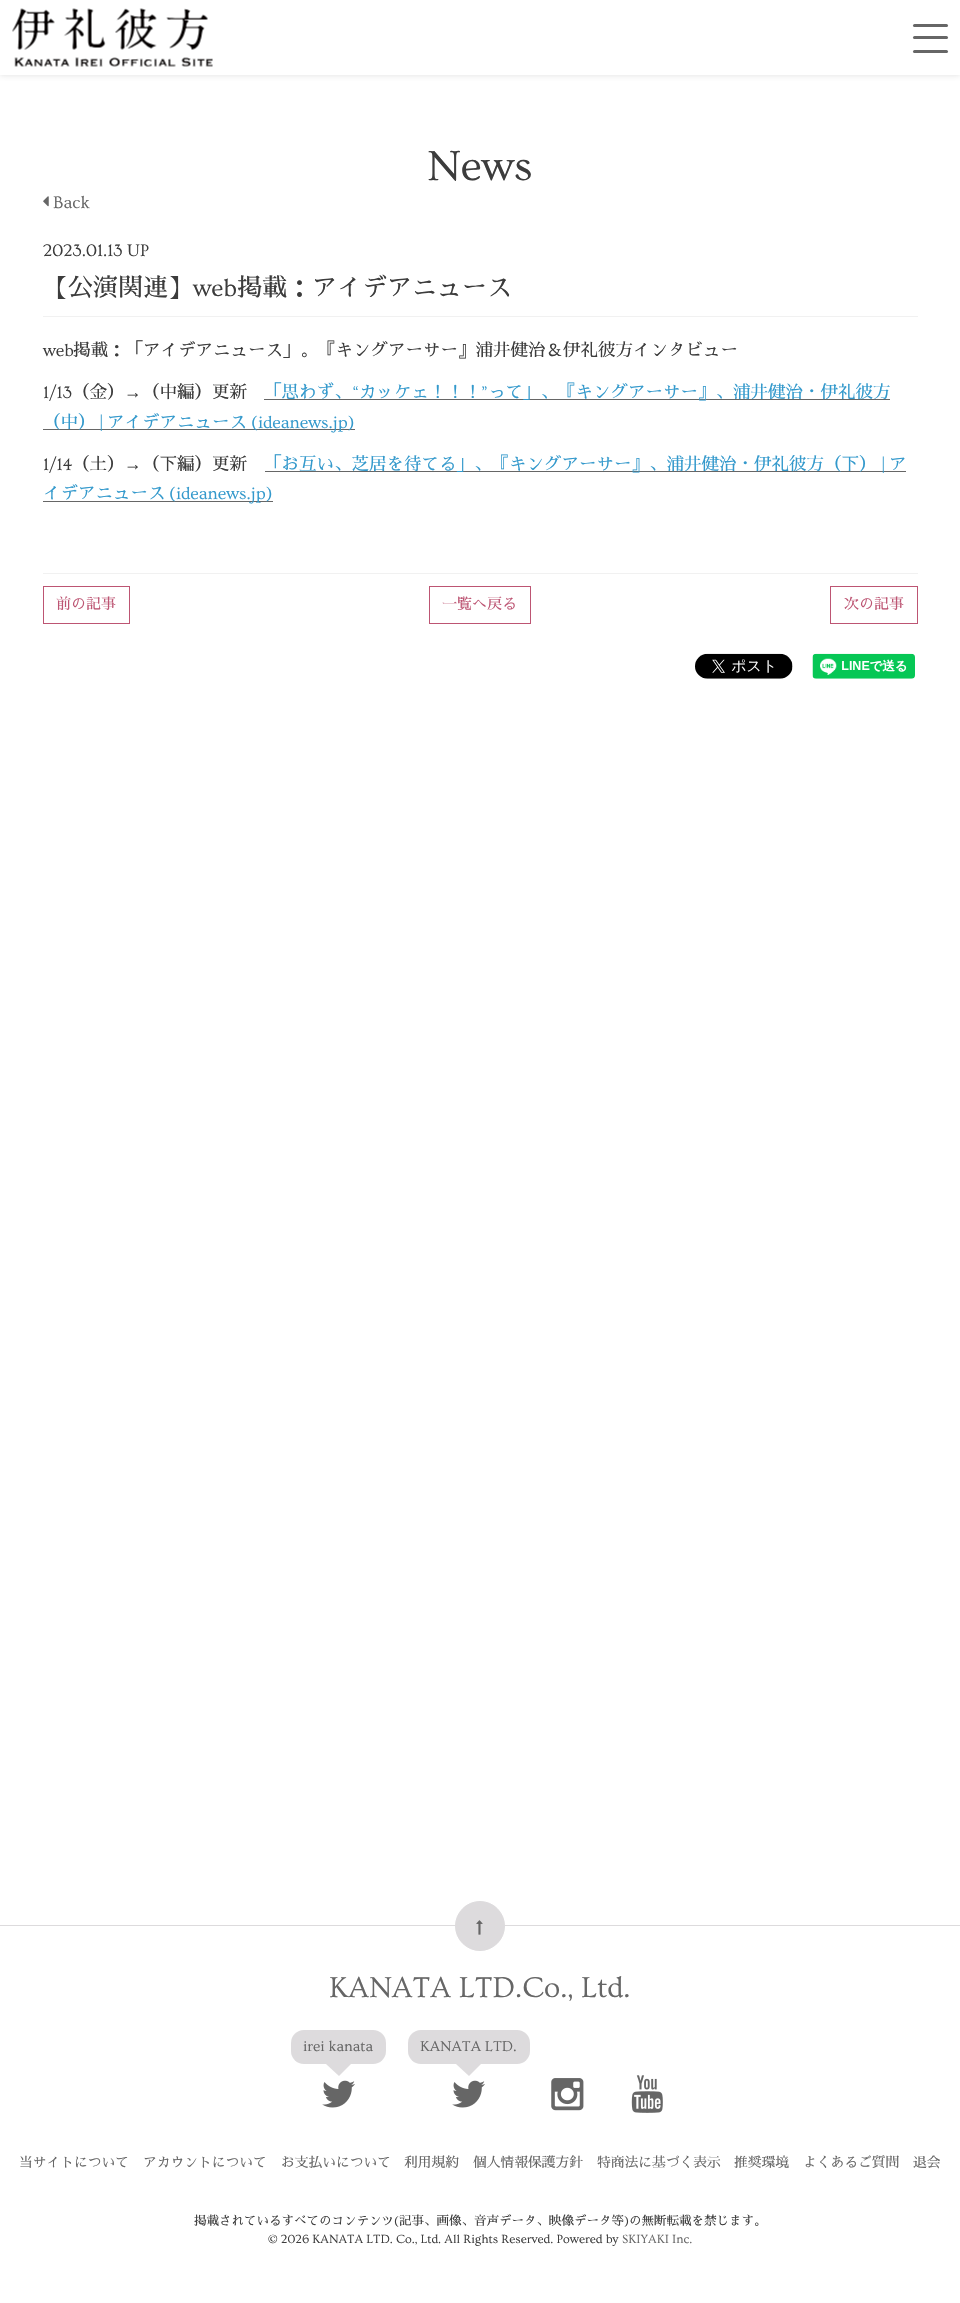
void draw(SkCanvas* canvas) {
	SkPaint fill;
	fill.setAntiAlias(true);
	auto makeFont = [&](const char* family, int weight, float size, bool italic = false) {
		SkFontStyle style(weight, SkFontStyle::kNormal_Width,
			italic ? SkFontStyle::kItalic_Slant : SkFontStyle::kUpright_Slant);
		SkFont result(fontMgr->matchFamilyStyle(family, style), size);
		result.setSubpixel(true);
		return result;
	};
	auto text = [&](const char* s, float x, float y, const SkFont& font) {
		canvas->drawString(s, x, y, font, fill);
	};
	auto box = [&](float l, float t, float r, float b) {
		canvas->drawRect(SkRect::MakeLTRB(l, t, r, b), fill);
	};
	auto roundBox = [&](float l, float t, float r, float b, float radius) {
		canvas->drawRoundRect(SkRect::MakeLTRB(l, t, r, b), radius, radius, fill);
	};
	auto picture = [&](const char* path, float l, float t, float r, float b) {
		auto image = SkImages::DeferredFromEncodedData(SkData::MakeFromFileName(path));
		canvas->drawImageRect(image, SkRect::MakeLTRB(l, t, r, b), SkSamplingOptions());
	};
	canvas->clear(0xFFFFFFFF);
	canvas->save();
	canvas->clipRect(SkRect::MakeLTRB(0, 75, 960, 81));
	fill.setColor(0xFFDFDFDF);
	fill.setMaskFilter(SkMaskFilter::MakeBlur(kNormal_SkBlurStyle, 3));
	canvas->drawRect(SkRect::MakeLTRB(0, 0, 960, 75), fill);
	fill.setMaskFilter(nullptr);
	canvas->restore();
	picture("image0.png", 12, 8, 213, 67);
	fill.setColor(0xFF666666);
	roundBox(913, 24, 948, 27, 1.5f);
	roundBox(913, 36, 948, 39, 1.5f);
	roundBox(913, 50, 948, 53, 1.5f);
	picture("image1.png", 43, 196, 49, 207);
	fill.setColor(0xFFF1F1F1);
	box(43, 316, 918, 317);
	fill.setColor(0xFF666666);
	box(264, 399, 890, 400);
	box(43, 429, 355, 430);
	box(265, 471, 906, 472);
	box(43, 501, 273, 502);
	fill.setColor(0xFFF1F1F1);
	box(43, 573, 918, 574);
	fill.setStyle(SkPaint::kStroke_Style);
	fill.setStrokeWidth(1);
	fill.setColor(0xFFBD5573);
	canvas->drawRect(SkRect::MakeLTRB(43.5f, 586.5f, 129.5f, 623.5f), fill);
	canvas->drawRect(SkRect::MakeLTRB(429.5f, 586.5f, 530.5f, 623.5f), fill);
	canvas->drawRect(SkRect::MakeLTRB(830.5f, 586.5f, 917.5f, 623.5f), fill);
	picture("image2.png", 695, 653, 793, 679);
	picture("image3.png", 812, 653, 915, 679);
	fill.setStyle(SkPaint::kFill_Style);
	fill.setColor(0xFFDDDBDD);
	box(0, 1925, 960, 1926);
	canvas->drawCircle(480, 1926, 24.5f, fill);
	fill.setStyle(SkPaint::kStroke_Style);
	canvas->drawCircle(480, 1926, 24.5f, fill);
	picture("image4.png", 476, 1920, 483, 1935);
	fill.setStyle(SkPaint::kFill_Style);
	roundBox(291, 2030, 386, 2064, 13);
	canvas->drawPath(SkPathBuilder().moveTo(326, 2064).lineTo(351, 2064).lineTo(339, 2076).close().detach(), fill);
	picture("image5.png", 322, 2080, 355, 2108);
	roundBox(408, 2030, 530, 2064, 13);
	canvas->drawPath(SkPathBuilder().moveTo(456, 2064).lineTo(481, 2064).lineTo(469, 2076).close().detach(), fill);
	picture("image5.png", 452, 2080, 485, 2108);
	picture("image6.png", 551, 2078, 584, 2111);
	picture("image7.png", 631, 2075, 663, 2113);
	auto font1 = makeFont("Ovo", 400, 44);
	fill.setColor(0xFF3C3C3C);
	text("News", 427, 180, font1);
	auto font2 = makeFont("Ovo", 400, 17.5f);
	fill.setColor(0xFF666666);
	text("Back", 53, 208, font2);
	fill.setColor(0xFF3C3C3C);
	text("2023.01.13 UP", 43, 256, font2);
	auto font3 = makeFont("Sawarabi Mincho", 400, 25);
	text("【公演関連】", 43, 296, font3);
	auto font4 = makeFont("Ovo", 400, 25);
	text("web", 193, 296, font4);
	text("掲載：アイデアニュース", 237, 296, font3);
	text("web", 43, 356, font2);
	auto font5 = makeFont("Sawarabi Mincho", 400, 17.5f);
	text("掲載：「アイデアニュース」。『キングアーサー』浦井健治＆伊礼彼方インタビュー", 73, 356, font5);
	text("1/13", 43, 398, font2);
	text("（金）", 72, 398, font5);
	text("（中編）更新", 142, 398, font5);
	fill.setColor(0xFF3399CC);
	text("「思わず、", 264, 398, font5);
	text("“", 352, 398, font2);
	text("カッケェ！！！", 359, 398, font5);
	text("”", 481, 398, font2);
	text("って」、『キングアーサー』、浦井健治・伊礼彼方", 488, 398, font5);
	auto font6 = makeFont("Liberation Serif", 400, 17.5f);
	fill.setColor(0xFF3C3C3C);
	text("→", 124, 398, font6);
	fill.setColor(0xFF3399CC);
	text("（中）", 43, 428, font5);
	text("|", 99, 428, font2);
	text("アイデアニュース", 107, 428, font5);
	text("(ideanews.jp)", 251, 428, font2);
	fill.setColor(0xFF3C3C3C);
	text("1/14", 43, 470, font2);
	text("（土）", 72, 470, font5);
	text("→", 124, 470, font6);
	text("（下編）更新", 142, 470, font5);
	fill.setColor(0xFF3399CC);
	text("「お互い、芝居を待てる」、『キングアーサー』、浦井健治・伊礼彼方（下）", 264, 470, font5);
	text("|", 881, 470, font2);
	text("ア", 889, 470, font5);
	text("イデアニュース", 43, 499, font5);
	text("(ideanews.jp)", 169, 499, font2);
	auto font7 = makeFont("Sawarabi Mincho", 400, 15);
	fill.setColor(0xFFBD5573);
	text("前の記事", 56, 609, font7);
	text("一覧へ戻る", 442, 609, font7);
	text("次の記事", 844, 609, font7);
	auto font8 = makeFont("Ovo", 400, 30);
	fill.setColor(0xFF666666);
	text("KANATA LTD.Co., Ltd.", 329, 1997, font8);
	auto font9 = makeFont("Ovo", 400, 15);
	text("irei kanata", 303, 2051, font9);
	text("KANATA LTD.", 420, 2051, font9);
	auto font10 = makeFont("Sawarabi Mincho", 400, 13.75f);
	text("当サイトについて", 19, 2167, font10);
	text("アカウントについて", 143, 2167, font10);
	text("お支払いについて", 281, 2167, font10);
	text("利用規約", 404, 2167, font10);
	text("個人情報保護方針", 473, 2167, font10);
	text("特商法に基づく表示", 597, 2167, font10);
	text("推奨環境", 734, 2167, font10);
	text("よくあるご質問", 803, 2167, font10);
	text("退会", 913, 2167, font10);
	auto font11 = makeFont("Sawarabi Mincho", 400, 12.5f);
	fill.setColor(0xFF3C3C3C);
	text("掲載されているすべてのコンテンツ", 194, 2225, font11);
	auto font12 = makeFont("Ovo", 400, 12.5f);
	text("(", 394, 2225, font12);
	text("記事、画像、音声データ、映像データ等", 399, 2225, font11);
	text(")", 624, 2225, font12);
	text("の無断転載を禁じます。", 629, 2225, font11);
	text("© 2026 KANATA LTD. Co., Ltd. All Rights Reserved. Powered by", 268, 2243, font12);
	fill.setColor(0xFF666666);
	text("SKIYAKI Inc.", 622, 2243, font12);
}
